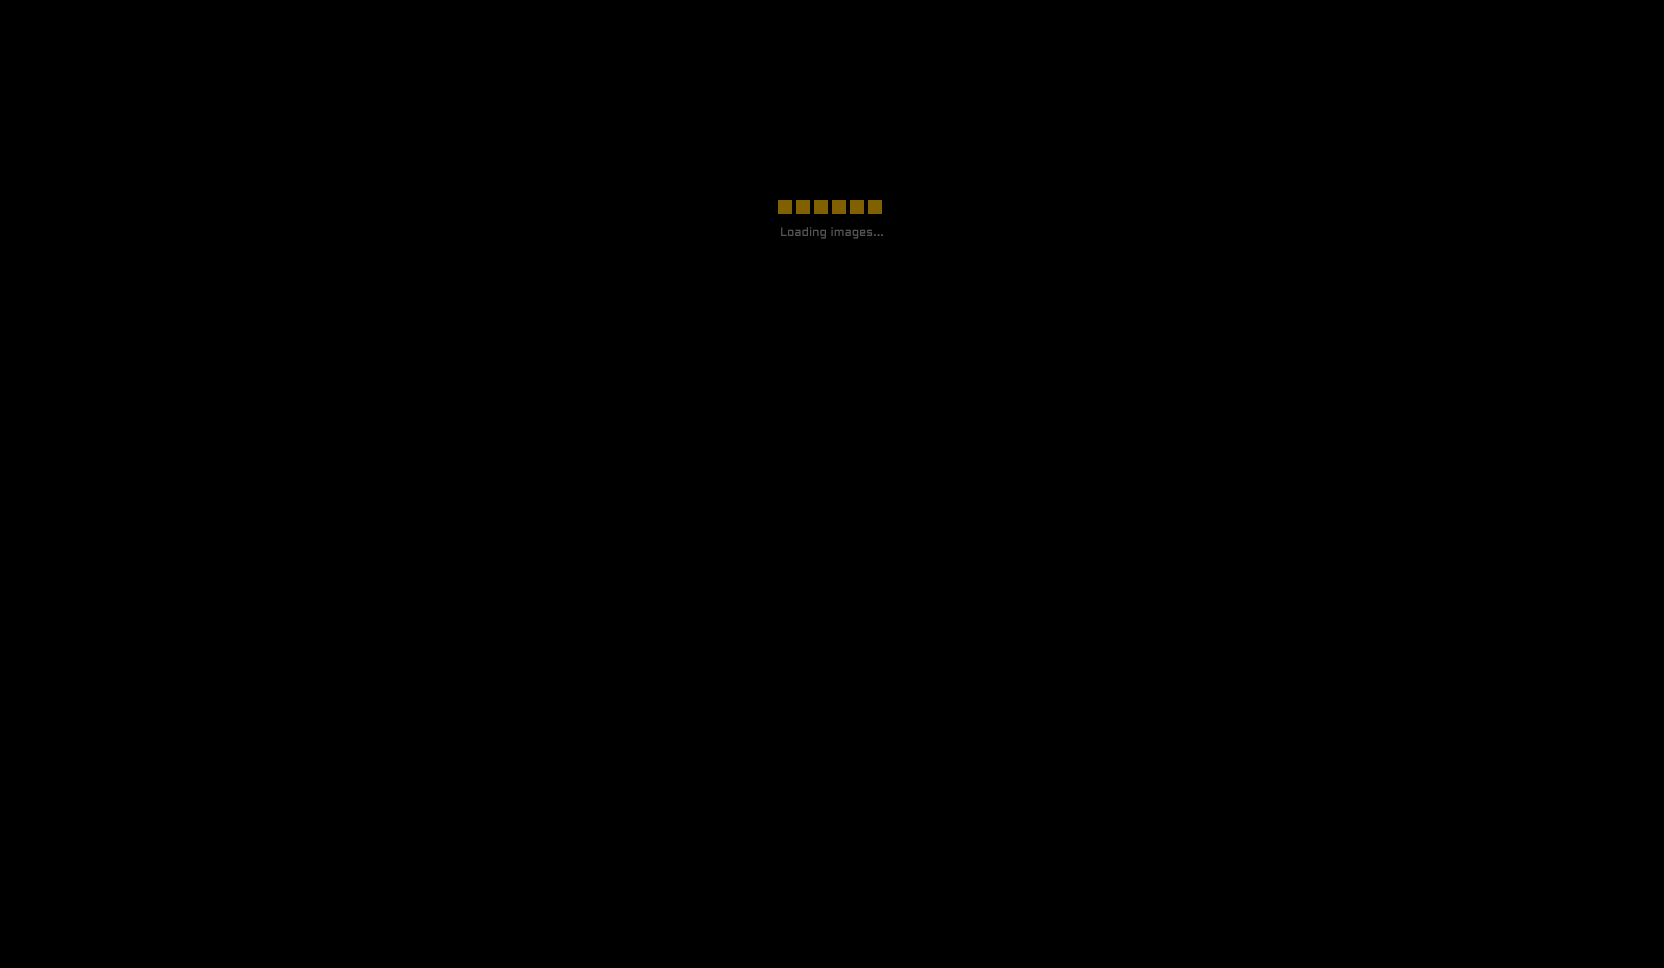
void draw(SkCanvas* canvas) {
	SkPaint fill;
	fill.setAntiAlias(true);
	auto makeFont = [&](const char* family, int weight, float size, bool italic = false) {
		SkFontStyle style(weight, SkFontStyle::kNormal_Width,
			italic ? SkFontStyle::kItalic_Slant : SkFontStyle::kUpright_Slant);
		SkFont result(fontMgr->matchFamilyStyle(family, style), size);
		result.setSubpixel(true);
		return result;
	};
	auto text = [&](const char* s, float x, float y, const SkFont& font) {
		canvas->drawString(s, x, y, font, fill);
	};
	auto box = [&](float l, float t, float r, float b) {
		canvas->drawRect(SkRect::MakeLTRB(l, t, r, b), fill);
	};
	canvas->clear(0xFF000000);
	fill.setColor(0xFF806000);
	box(778, 200, 792, 214);
	box(796, 200, 810, 214);
	box(814, 200, 828, 214);
	box(832, 200, 846, 214);
	box(850, 200, 864, 214);
	box(868, 200, 882, 214);
	auto font1 = makeFont("Aldrich", 400, 12);
	fill.setColor(0xFF545454);
	text("Loading images...", 780, 236, font1);
}
